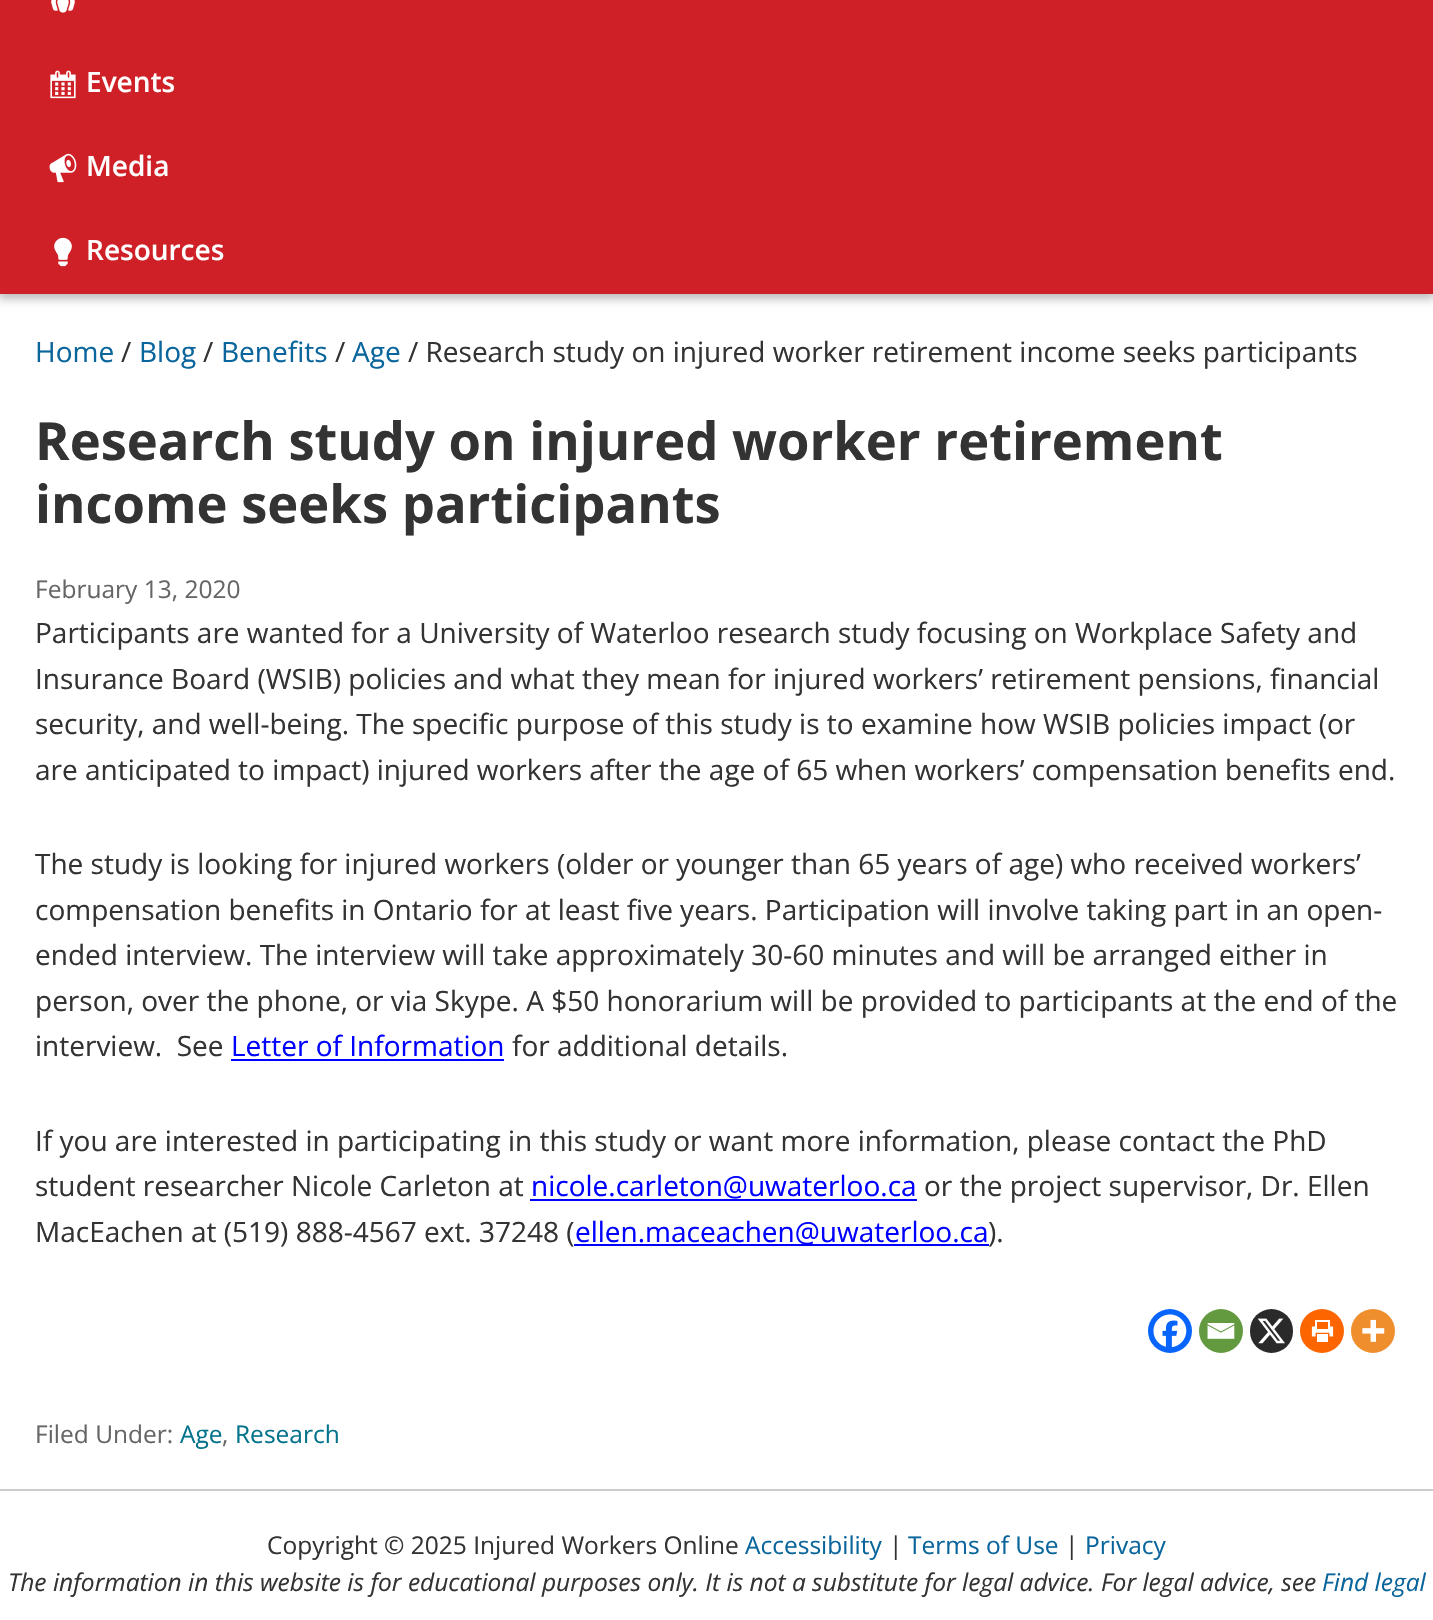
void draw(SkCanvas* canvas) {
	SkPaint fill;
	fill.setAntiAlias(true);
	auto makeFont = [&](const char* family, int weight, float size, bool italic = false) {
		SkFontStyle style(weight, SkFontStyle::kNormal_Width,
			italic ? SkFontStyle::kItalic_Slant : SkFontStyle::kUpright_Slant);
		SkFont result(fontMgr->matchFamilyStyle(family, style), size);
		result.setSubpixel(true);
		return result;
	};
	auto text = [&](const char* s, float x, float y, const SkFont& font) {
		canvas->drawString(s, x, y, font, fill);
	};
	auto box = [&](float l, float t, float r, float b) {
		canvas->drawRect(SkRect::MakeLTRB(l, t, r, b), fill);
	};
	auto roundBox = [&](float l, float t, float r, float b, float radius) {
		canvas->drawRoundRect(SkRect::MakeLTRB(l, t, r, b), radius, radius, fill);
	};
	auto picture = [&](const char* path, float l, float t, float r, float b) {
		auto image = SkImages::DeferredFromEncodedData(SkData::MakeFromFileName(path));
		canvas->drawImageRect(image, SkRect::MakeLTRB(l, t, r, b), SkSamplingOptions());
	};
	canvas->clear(0xFFFFFFFF);
	fill.setColor(0x4D000000);
	fill.setMaskFilter(SkMaskFilter::MakeBlur(kNormal_SkBlurStyle, 5));
	canvas->drawRect(SkRect::MakeLTRB(-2, -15, 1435, 298), fill);
	fill.setMaskFilter(nullptr);
	fill.setColor(0xFFCE2026);
	box(0, 0, 1433, 294);
	picture("image0.png", 51, 0, 75, 13);
	picture("image1.png", 50, 70, 76, 99);
	picture("image2.png", 49, 153, 77, 183);
	picture("image3.png", 54, 237, 72, 267);
	fill.setColor(0xFF0000FF);
	box(231, 1059, 504, 1061);
	box(530, 1199, 917, 1201);
	box(574, 1244, 989, 1246);
	fill.setColor(0xFF0765FE);
	canvas->drawCircle(1170, 1331, 22, fill);
	picture("image4.png", 1153, 1314, 1187, 1348);
	fill.setColor(0xFF649A3F);
	canvas->drawCircle(1221, 1331, 22, fill);
	picture("image5.png", 1207, 1323, 1235, 1339);
	fill.setColor(0xFF2A2A2A);
	roundBox(1250, 1309, 1293, 1353, 21.5f);
	picture("image6.png", 1257, 1318, 1285, 1344);
	fill.setColor(0xFFFD6500);
	canvas->drawCircle(1322, 1331, 22, fill);
	picture("image7.png", 1311, 1320, 1334, 1342);
	fill.setColor(0xFFEE8E2D);
	canvas->drawCircle(1373, 1331, 22, fill);
	picture("image8.png", 1362, 1319, 1385, 1342);
	fill.setColor(0xFFCCCCCC);
	box(0, 1489, 1433, 1491);
	auto font1 = makeFont("Open Sans", 600, 28);
	fill.setColor(0xFFFFFFFF);
	text("Events", 86, 92, font1);
	text("Media", 86, 176, font1);
	text("Resources", 86, 260, font1);
	auto font2 = makeFont("Open Sans", 400, 28);
	fill.setColor(0xFF09659B);
	text("Home", 35, 362, font2);
	fill.setColor(0xFF333333);
	text("/", 121, 362, font2);
	fill.setColor(0xFF09659B);
	text("Blog", 139, 362, font2);
	fill.setColor(0xFF333333);
	text("/", 203, 362, font2);
	fill.setColor(0xFF09659B);
	text("Benefits", 221, 362, font2);
	fill.setColor(0xFF333333);
	text("/", 335, 362, font2);
	fill.setColor(0xFF09659B);
	text("Age", 352, 362, font2);
	fill.setColor(0xFF333333);
	text("/ Research study on injured worker retirement income seeks participants", 408, 362, font2);
	auto font3 = makeFont("Open Sans", 700, 52.5f);
	text("Research study on injured worker retirement", 35, 460, font3);
	text("income seeks participants", 35, 523, font3);
	auto font4 = makeFont("Open Sans", 400, 24.5f);
	fill.setColor(0xFF666666);
	text("February 13, 2020", 35, 598, font4);
	fill.setColor(0xFF333333);
	text("Participants are wanted for a University of Waterloo research study focusing on Workplace Safety and", 35, 643, font2);
	text("Insurance Board (WSIB) policies and what they mean for injured workers’ retirement pensions, financial", 35, 689, font2);
	text("security, and well-being. The specific purpose of this study is to examine how WSIB policies impact (or", 35, 734, font2);
	text("are anticipated to impact) injured workers after the age of 65 when workers’ compensation benefits end.", 35, 780, font2);
	text("The study is looking for injured workers (older or younger than 65 years of age) who received workers’", 35, 874, font2);
	text("compensation benefits in Ontario for at least five years. Participation will involve taking part in an open-", 35, 920, font2);
	text("ended interview. The interview will take approximately 30-60 minutes and will be arranged either in", 35, 965, font2);
	text("person, over the phone, or via Skype. A $50 honorarium will be provided to participants at the end of the", 35, 1011, font2);
	text("interview.  See", 35, 1056, font2);
	fill.setColor(0xFF0000FF);
	text("Letter of Information", 231, 1056, font2);
	fill.setColor(0xFF333333);
	text("for additional details.", 512, 1056, font2);
	text("If you are interested in participating in this study or want more information, please contact the PhD", 35, 1151, font2);
	text("student researcher Nicole Carleton at", 35, 1196, font2);
	fill.setColor(0xFF0000FF);
	text("nicole.carleton@uwaterloo.ca", 531, 1196, font2);
	fill.setColor(0xFF333333);
	text("or the project supervisor, Dr. Ellen", 924, 1196, font2);
	text("MacEachen at (519) 888-4567 ext. 37248 (", 35, 1242, font2);
	fill.setColor(0xFF0000FF);
	text("ellen.maceachen@uwaterloo.ca", 575, 1242, font2);
	fill.setColor(0xFF333333);
	text(").", 988, 1242, font2);
	fill.setColor(0xFF666666);
	text("Filed Under:", 35, 1443, font4);
	fill.setColor(0xFF03738C);
	text("Age", 180, 1443, font4);
	fill.setColor(0xFF666666);
	text(",", 222, 1443, font4);
	fill.setColor(0xFF03738C);
	text("Research", 235, 1443, font4);
	fill.setColor(0xFF333333);
	text("Copyright © 2025 Injured Workers Online", 267, 1554, font4);
	fill.setColor(0xFF09659B);
	text("Accessibility", 745, 1554, font4);
	fill.setColor(0xFF333333);
	text("|", 889, 1554, font4);
	fill.setColor(0xFF09659B);
	text("Terms of Use", 908, 1554, font4);
	fill.setColor(0xFF333333);
	text("|", 1065, 1554, font4);
	fill.setColor(0xFF09659B);
	text("Privacy", 1085, 1554, font4);
	auto font5 = makeFont("Open Sans", 400, 24.5f, true);
	fill.setColor(0xFF333333);
	text("The information in this website is for educational purposes only. It is not a substitute for legal advice. For legal advice, see", 8, 1591, font5);
	fill.setColor(0xFF09659B);
	text("Find legal", 1322, 1591, font5);
}
